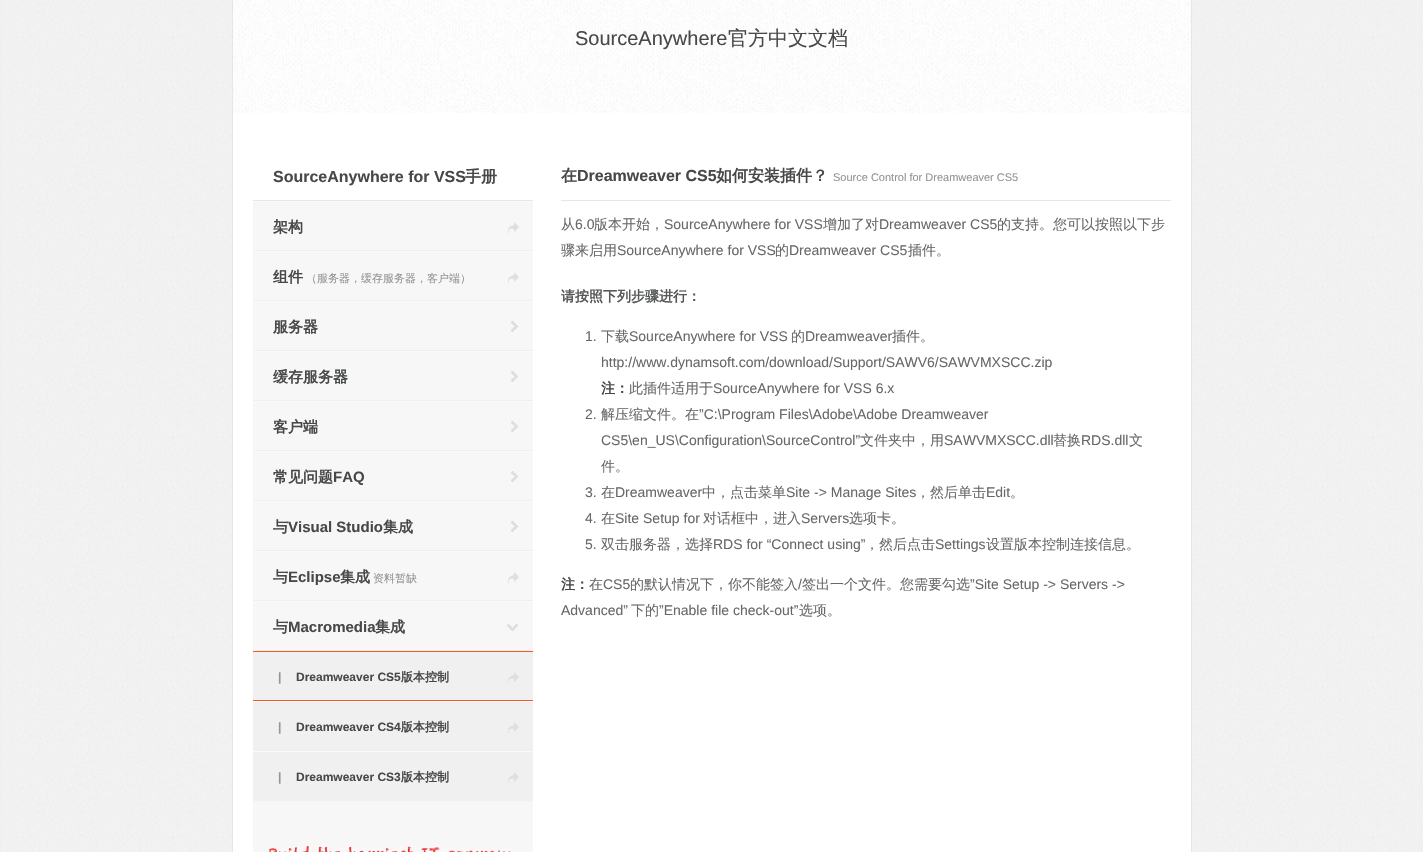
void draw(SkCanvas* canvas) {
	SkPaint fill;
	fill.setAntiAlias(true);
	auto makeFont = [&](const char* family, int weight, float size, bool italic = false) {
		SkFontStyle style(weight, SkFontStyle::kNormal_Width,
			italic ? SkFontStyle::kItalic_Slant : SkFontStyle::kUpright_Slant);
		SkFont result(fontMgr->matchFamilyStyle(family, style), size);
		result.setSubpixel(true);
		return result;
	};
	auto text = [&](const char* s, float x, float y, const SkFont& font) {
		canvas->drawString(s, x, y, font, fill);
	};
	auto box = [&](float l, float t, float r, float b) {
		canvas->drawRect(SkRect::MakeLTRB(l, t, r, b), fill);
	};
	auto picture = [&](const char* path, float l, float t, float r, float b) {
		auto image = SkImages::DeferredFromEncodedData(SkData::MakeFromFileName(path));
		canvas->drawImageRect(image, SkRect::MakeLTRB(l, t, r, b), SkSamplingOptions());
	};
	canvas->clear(0xFFF0F0F0);
	picture("image0.png", 3, 0, 1420, 851);
	fill.setColor(0xFFFFFFFF);
	box(233, 113, 1191, 852);
	fill.setStyle(SkPaint::kStroke_Style);
	fill.setStrokeWidth(1);
	fill.setColor(0xFFE5E6E7);
	canvas->drawRect(SkRect::MakeLTRB(232.5f, -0.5f, 1191.5f, 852.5f), fill);
	picture("image1.png", 233, 0, 1191, 113);
	fill.setStyle(SkPaint::kFill_Style);
	fill.setColor(0xFFF7F7F7);
	box(253, 202, 533, 852);
	fill.setColor(0xFFE5E6E7);
	box(253, 200, 533, 201);
	picture("image2.png", 508, 222, 519, 234);
	fill.setColor(0xFFFAFAFA);
	box(253, 201, 533, 202);
	fill.setColor(0xFFEFEFEF);
	box(253, 250, 533, 251);
	picture("image2.png", 508, 272, 519, 284);
	fill.setColor(0xFFFAFAFA);
	box(253, 251, 533, 252);
	fill.setColor(0xFFEFEFEF);
	box(253, 300, 533, 301);
	picture("image3.png", 511, 321, 518, 332);
	fill.setColor(0xFFFAFAFA);
	box(253, 301, 533, 302);
	fill.setColor(0xFFEFEFEF);
	box(253, 350, 533, 351);
	picture("image3.png", 511, 371, 518, 382);
	fill.setColor(0xFFFAFAFA);
	box(253, 351, 533, 352);
	fill.setColor(0xFFEFEFEF);
	box(253, 400, 533, 401);
	picture("image3.png", 511, 421, 518, 432);
	fill.setColor(0xFFFAFAFA);
	box(253, 401, 533, 402);
	fill.setColor(0xFFEFEFEF);
	box(253, 450, 533, 451);
	picture("image3.png", 511, 471, 518, 482);
	fill.setColor(0xFFFAFAFA);
	box(253, 451, 533, 452);
	fill.setColor(0xFFEFEFEF);
	box(253, 500, 533, 501);
	picture("image3.png", 511, 521, 518, 532);
	fill.setColor(0xFFFAFAFA);
	box(253, 501, 533, 502);
	fill.setColor(0xFFEFEFEF);
	box(253, 550, 533, 551);
	picture("image2.png", 508, 572, 519, 584);
	fill.setColor(0xFFFAFAFA);
	box(253, 551, 533, 552);
	fill.setColor(0xFFEFEFEF);
	box(253, 600, 533, 601);
	picture("image4.png", 507, 624, 518, 631);
	fill.setColor(0xFFFAFAFA);
	box(253, 601, 533, 602);
	fill.setColor(0xFFEFEFEF);
	box(253, 650, 533, 651);
	fill.setColor(0xFFF0F0F0);
	box(253, 652, 533, 801);
	picture("image5.png", 508, 672, 519, 683);
	fill.setColor(0xFFF15A23);
	box(253, 651, 533, 652);
	box(253, 700, 533, 701);
	picture("image5.png", 508, 722, 519, 733);
	fill.setColor(0xFFFAFAFA);
	box(253, 701, 533, 702);
	picture("image5.png", 508, 772, 519, 783);
	box(253, 751, 533, 752);
	picture("image6.png", 269, 846, 511, 852);
	fill.setColor(0xFFE5E6E7);
	box(561, 200, 1171, 201);
	auto font1 = makeFont("Liberation Sans", 400, 20);
	fill.setColor(0xFF474849);
	text("SourceAnywhere", 575, 45, font1);
	auto font2 = makeFont("WenQuanYi Zen Hei", 500, 20);
	text("官方中文文档", 728, 45, font2);
	auto font3 = makeFont("Liberation Sans", 700, 16);
	text("SourceAnywhere for VSS", 273, 182, font3);
	auto font4 = makeFont("WenQuanYi Zen Hei", 700, 16);
	text("手册", 465, 182, font4);
	auto font5 = makeFont("WenQuanYi Zen Hei", 700, 15);
	text("架构", 273, 232, font5);
	text("组件", 273, 282, font5);
	auto font6 = makeFont("WenQuanYi Zen Hei", 500, 11);
	fill.setColor(0xFF959393);
	text("（服务器，缓存服务器，客户端）", 306, 282, font6);
	fill.setColor(0xFF474849);
	text("服务器", 273, 332, font5);
	text("缓存服务器", 273, 382, font5);
	text("客户端", 273, 432, font5);
	text("常见问题", 273, 482, font5);
	auto font7 = makeFont("Liberation Sans", 700, 15);
	text("FAQ", 333, 482, font7);
	text("与", 273, 532, font5);
	text("Visual Studio", 288, 532, font7);
	text("集成", 383, 532, font5);
	text("与", 273, 582, font5);
	text("Eclipse", 288, 582, font7);
	text("集成", 340, 582, font5);
	fill.setColor(0xFF959393);
	text("资料暂缺", 373, 582, font6);
	fill.setColor(0xFF474849);
	text("与", 273, 632, font5);
	text("Macromedia", 288, 632, font7);
	text("集成", 375, 632, font5);
	auto font8 = makeFont("Liberation Sans", 700, 12);
	fill.setColor(0xFF959393);
	text("|", 278, 681, font8);
	fill.setColor(0xFF474849);
	text("Dreamweaver CS5", 296, 681, font8);
	auto font9 = makeFont("WenQuanYi Zen Hei", 700, 12);
	text("版本控制", 401, 681, font9);
	fill.setColor(0xFF959393);
	text("|", 278, 731, font8);
	fill.setColor(0xFF474849);
	text("Dreamweaver CS4", 296, 731, font8);
	text("版本控制", 401, 731, font9);
	fill.setColor(0xFF959393);
	text("|", 278, 781, font8);
	fill.setColor(0xFF474849);
	text("Dreamweaver CS3", 296, 781, font8);
	text("版本控制", 401, 781, font9);
	text("在", 561, 181, font4);
	text("Dreamweaver CS5", 577, 181, font3);
	text("如何安装插件？", 716, 181, font4);
	auto font10 = makeFont("Liberation Sans", 400, 11);
	fill.setColor(0xFF959393);
	text("Source Control for Dreamweaver CS5", 833, 181, font10);
	auto font11 = makeFont("WenQuanYi Zen Hei", 500, 14);
	fill.setColor(0xFF676869);
	text("从", 561, 229, font11);
	auto font12 = makeFont("Liberation Sans", 400, 14);
	text("6.0", 575, 229, font12);
	text("版本开始，", 594, 229, font11);
	text("SourceAnywhere for VSS", 664, 229, font12);
	text("增加了对", 823, 229, font11);
	text("Dreamweaver CS5", 879, 229, font12);
	text("的支持。您可以按照以下步", 997, 229, font11);
	text("骤来启用", 561, 255, font11);
	text("SourceAnywhere for VSS", 617, 255, font12);
	text("的", 775, 255, font11);
	text("Dreamweaver CS5", 789, 255, font12);
	text("插件。", 908, 255, font11);
	auto font13 = makeFont("WenQuanYi Zen Hei", 700, 14);
	fill.setColor(0xFF575859);
	text("请按照下列步骤进行：", 561, 301, font13);
	fill.setColor(0xFF676869);
	text("1.", 585, 341, font12);
	text("下载", 601, 341, font11);
	text("SourceAnywhere for VSS", 629, 341, font12);
	text("的", 791, 341, font11);
	text("Dreamweaver", 805, 341, font12);
	text("插件。", 892, 341, font11);
	text("http://www.dynamsoft.com/download/Support/SAWV6/SAWVMXSCC.zip", 601, 367, font12);
	fill.setColor(0xFF474849);
	text("注：", 601, 393, font13);
	fill.setColor(0xFF676869);
	text("此插件适用于", 629, 393, font11);
	text("SourceAnywhere for VSS 6.x", 713, 393, font12);
	text("2.", 585, 419, font12);
	text("解压缩文件。在", 601, 419, font11);
	text("”C:\\Program Files\\Adobe\\Adobe Dreamweaver", 699, 419, font12);
	text("CS5\\en_US\\Configuration\\SourceControl”", 601, 445, font12);
	text("文件夹中，用", 860, 445, font11);
	text("SAWVMXSCC.dll", 944, 445, font12);
	text("替换", 1053, 445, font11);
	text("RDS.dll", 1081, 445, font12);
	text("文", 1129, 445, font11);
	text("件。", 601, 471, font11);
	text("3.", 585, 497, font12);
	text("在", 601, 497, font11);
	text("Dreamweaver", 615, 497, font12);
	text("中，点击菜单", 702, 497, font11);
	text("Site -> Manage Sites", 786, 497, font12);
	text("，然后单击", 916, 497, font11);
	text("Edit", 986, 497, font12);
	text("。", 1010, 497, font11);
	text("4.", 585, 523, font12);
	text("在", 601, 523, font11);
	text("Site Setup for", 615, 523, font12);
	text("对话框中，进入", 703, 523, font11);
	text("Servers", 801, 523, font12);
	text("选项卡。", 849, 523, font11);
	text("5.", 585, 549, font12);
	text("双击服务器，选择", 601, 549, font11);
	text("RDS for “Connect using”", 713, 549, font12);
	text("，然后点击", 865, 549, font11);
	text("Settings", 935, 549, font12);
	text("设置版本控制连接信息。", 986, 549, font11);
	fill.setColor(0xFF474849);
	text("注：", 561, 589, font13);
	fill.setColor(0xFF676869);
	text("在", 589, 589, font11);
	text("CS5", 603, 589, font12);
	text("的默认情况下，你不能签入", 630, 589, font11);
	text("/", 798, 589, font12);
	text("签出一个文件。您需要勾选", 802, 589, font11);
	text("”Site Setup -> Servers ->", 970, 589, font12);
	text("Advanced”", 561, 615, font12);
	text("下的", 631, 615, font11);
	text("”Enable file check-out”", 659, 615, font12);
	text("选项。", 799, 615, font11);
}
